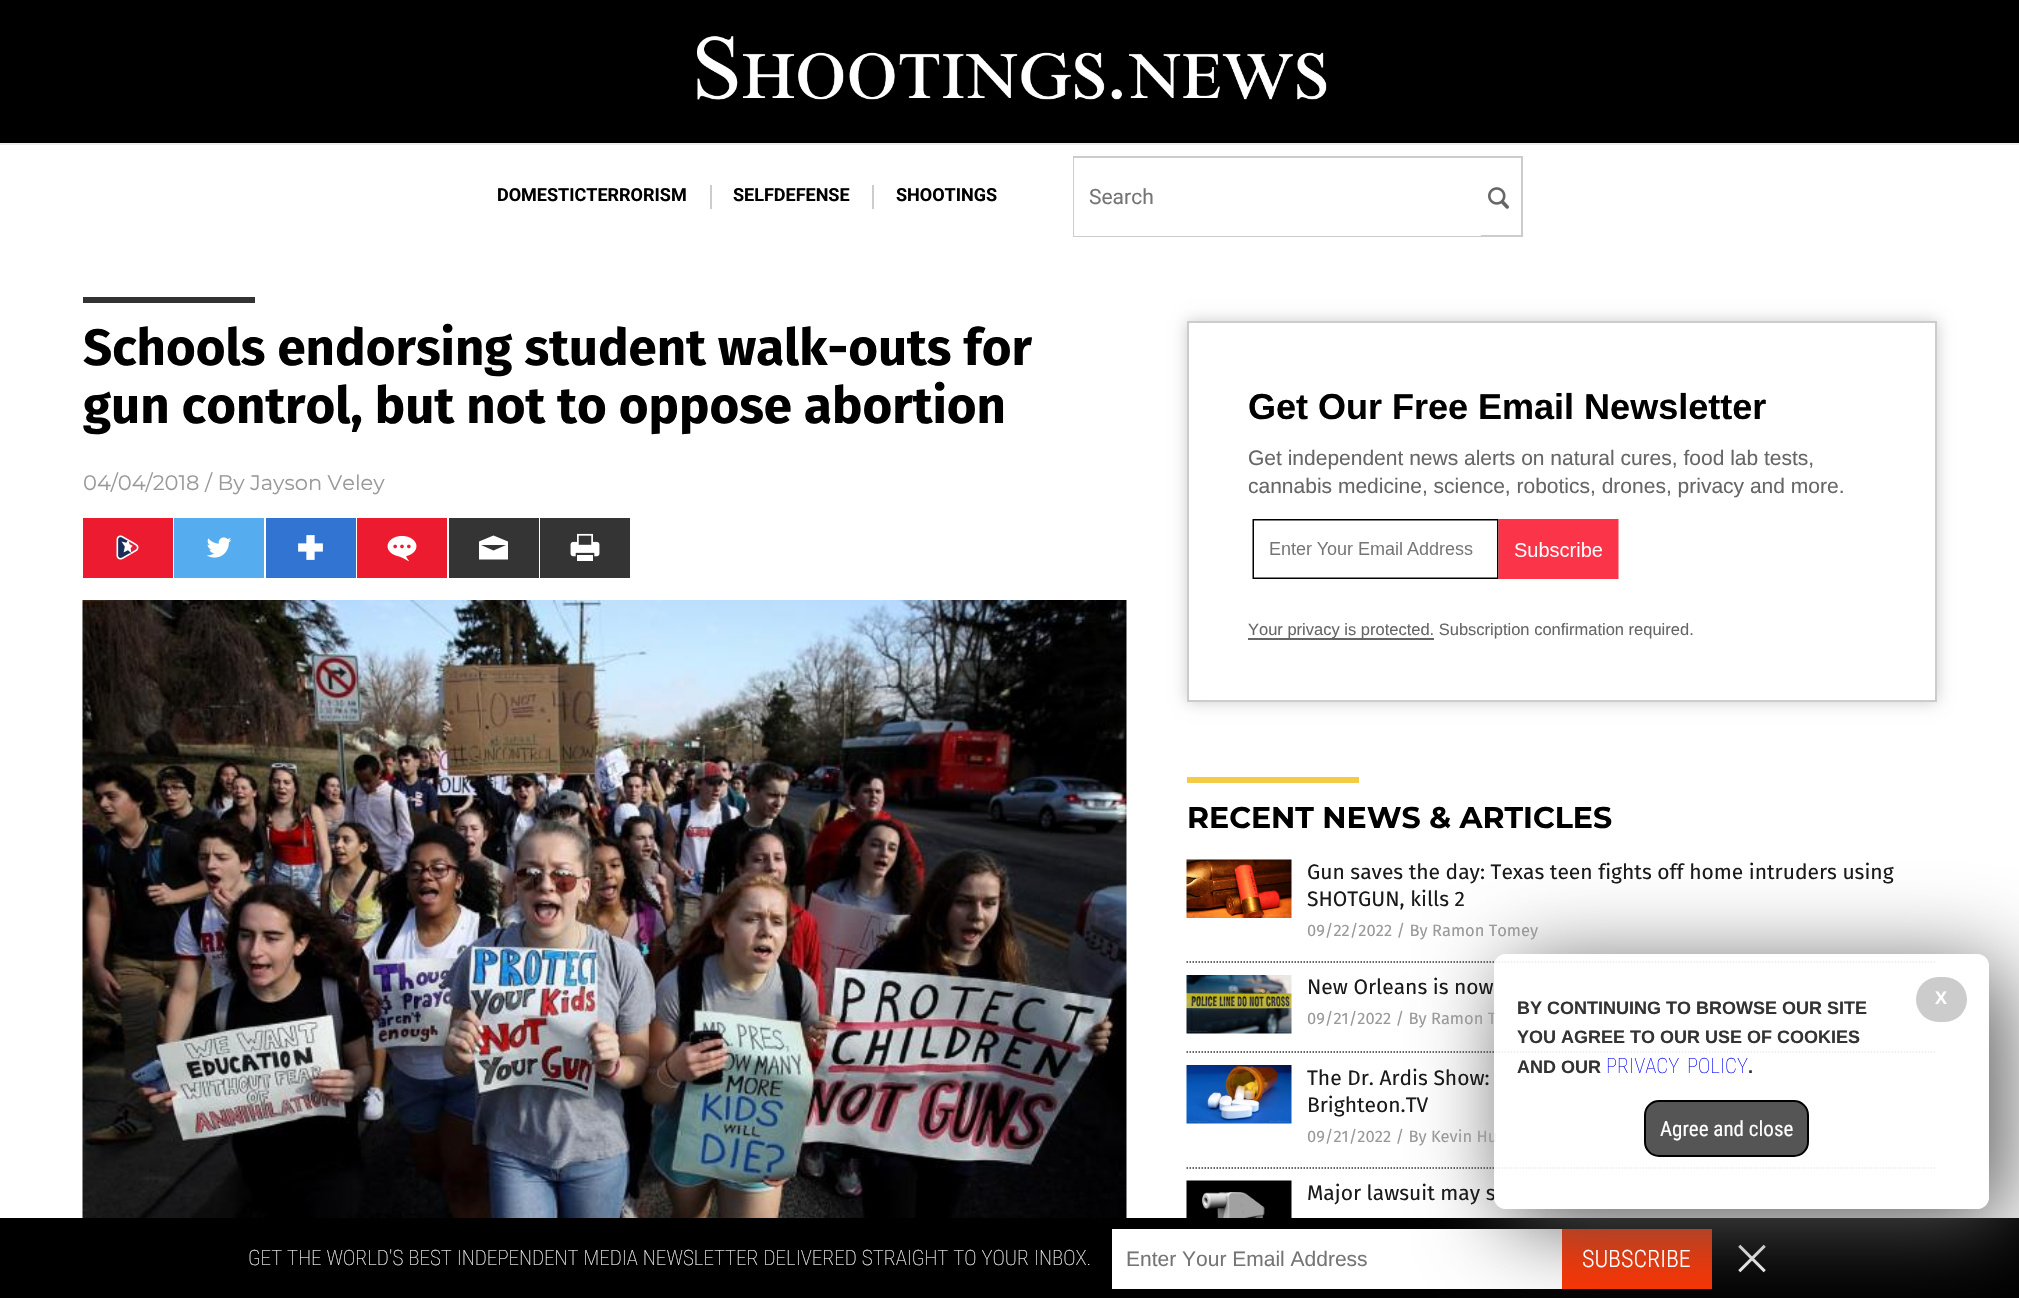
void draw(SkCanvas* canvas) {
	SkPaint fill;
	fill.setAntiAlias(true);
	auto makeFont = [&](const char* family, int weight, float size, bool italic = false) {
		SkFontStyle style(weight, SkFontStyle::kNormal_Width,
			italic ? SkFontStyle::kItalic_Slant : SkFontStyle::kUpright_Slant);
		SkFont result(fontMgr->matchFamilyStyle(family, style), size);
		result.setSubpixel(true);
		return result;
	};
	auto text = [&](const char* s, float x, float y, const SkFont& font) {
		canvas->drawString(s, x, y, font, fill);
	};
	auto spacedText = [&](const char* s, float x, float y, const SkFont& font, const SkPaint& ink, float letter, float word) {
		std::vector<SkGlyphID> glyphs(font.countText(s, strlen(s), SkTextEncoding::kUTF8));
		std::vector<float> xs(glyphs.size());
		font.textToGlyphs(s, strlen(s), SkTextEncoding::kUTF8, glyphs);
		font.getXPos(glyphs, xs, x);
		float extra = 0;
		for (size_t i = 0; i < glyphs.size(); i++) {
			xs[i] += extra;
			extra += letter + word * (glyphs[i] == font.unicharToGlyph(' '));
		}
		canvas->drawTextBlob(SkTextBlob::MakeFromPosHGlyphs(glyphs, xs, y, font), 0, 0, ink);
	};
	auto box = [&](float l, float t, float r, float b) {
		canvas->drawRect(SkRect::MakeLTRB(l, t, r, b), fill);
	};
	auto roundBox = [&](float l, float t, float r, float b, float radius) {
		canvas->drawRoundRect(SkRect::MakeLTRB(l, t, r, b), radius, radius, fill);
	};
	auto picture = [&](const char* path, float l, float t, float r, float b) {
		auto image = SkImages::DeferredFromEncodedData(SkData::MakeFromFileName(path));
		canvas->drawImageRect(image, SkRect::MakeLTRB(l, t, r, b), SkSamplingOptions());
	};
	canvas->clear(0xFF000000);
	picture("image0.png", 697, 36, 1327, 100);
	fill.setColor(0xFFFFFFFF);
	box(0, 145, 2019, 1218);
	fill.setColor(0xFFECECEC);
	box(0, 143, 2019, 145);
	fill.setColor(0xFFCCCCCC);
	box(710, 185, 712, 209);
	box(872, 185, 874, 209);
	fill.setStyle(SkPaint::kStroke_Style);
	fill.setStrokeWidth(2);
	canvas->drawRect(SkRect::MakeLTRB(1074, 157, 1522, 236), fill);
	fill.setStyle(SkPaint::kFill_Style);
	fill.setColor(0xFFFFFFFF);
	box(1074, 158, 1481, 236);
	picture("image1.png", 1488, 187, 1509, 209);
	fill.setColor(0xFF333333);
	box(83, 297, 255, 303);
	fill.setColor(0xFFED1B2F);
	box(83, 518, 173, 578);
	picture("image2.png", 116, 535, 139, 560);
	fill.setColor(0xFF55ACEF);
	box(174, 518, 264, 578);
	picture("image3.png", 206, 537, 232, 558);
	fill.setColor(0xFF3274D1);
	box(266, 518, 356, 578);
	picture("image4.png", 298, 535, 323, 560);
	fill.setColor(0xFFED1B2F);
	box(357, 518, 447, 578);
	picture("image5.png", 387, 535, 417, 562);
	fill.setColor(0xFF343434);
	box(449, 518, 539, 578);
	fill.setColor(0xFFFFFFFF);
	canvas->drawPath(SkPathBuilder().moveTo(493.5f, 535.5f).lineTo(479, 541.5f).lineTo(479, 559.5f).lineTo(508, 559.5f).lineTo(508, 541.5f).close().moveTo(493.5f, 550.5f).lineTo(481, 545).lineTo(506, 545).close().detach(), fill);
	fill.setColor(0xFF343434);
	box(540, 518, 630, 578);
	picture("image6.png", 570, 533, 600, 561);
	picture("image7.png", 82, 600, 1127, 1218);
	canvas->save();
	canvas->clipPath(SkPathBuilder(SkPathFillType::kEvenOdd).moveTo(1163, 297).lineTo(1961, 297).lineTo(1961, 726).lineTo(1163, 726).close().moveTo(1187, 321).lineTo(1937, 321).lineTo(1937, 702).lineTo(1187, 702).close().detach(), true);
	fill.setColor(0xFFCCCCCC);
	fill.setMaskFilter(SkMaskFilter::MakeBlur(kNormal_SkBlurStyle, 7.5f));
	canvas->drawRect(SkRect::MakeLTRB(1187, 321, 1937, 702), fill);
	fill.setMaskFilter(nullptr);
	canvas->restore();
	fill.setStyle(SkPaint::kStroke_Style);
	canvas->drawRect(SkRect::MakeLTRB(1188, 322, 1936, 701), fill);
	picture("image8.png", 1252, 519, 1619, 579);
	fill.setStyle(SkPaint::kFill_Style);
	fill.setColor(0xFF666666);
	box(1248, 638, 1434, 640);
	fill.setColor(0xFFF5CA45);
	box(1187, 777, 1359, 783);
	fill.setStyle(SkPaint::kStroke_Style);
	fill.setStrokeWidth(1.5f);
	fill.setColor(0xFF343434);
	fill.setPathEffect(SkDashPathEffect::Make({{1.5f, 1.5f}}, 0));
	canvas->drawPath(SkPathBuilder().moveTo(1186.5f, 962).lineTo(1936.5f, 962).detach(), fill);
	fill.setPathEffect(nullptr);
	picture("image9.png", 1186, 859, 1292, 918);
	fill.setPathEffect(SkDashPathEffect::Make({{1.5f, 1.5f}}, 0));
	canvas->drawPath(SkPathBuilder().moveTo(1186.5f, 1052).lineTo(1936.5f, 1052).detach(), fill);
	fill.setPathEffect(nullptr);
	picture("image10.png", 1186, 975, 1292, 1034);
	fill.setPathEffect(SkDashPathEffect::Make({{1.5f, 1.5f}}, 0));
	canvas->drawPath(SkPathBuilder().moveTo(1186.5f, 1168).lineTo(1936.5f, 1168).detach(), fill);
	fill.setPathEffect(nullptr);
	picture("image11.png", 1186, 1065, 1292, 1124);
	picture("image12.png", 1186, 1180, 1292, 1218);
	fill.setStyle(SkPaint::kFill_Style);
	fill.setColor(0xFFFFFFFF);
	box(1112, 1229, 1562, 1289);
	fill.setColor(0xFFFF3300);
	box(1562, 1229, 1712, 1289);
	picture("image13.png", 1738, 1244, 1766, 1273);
	canvas->save();
	canvas->clipPath(SkPathBuilder(SkPathFillType::kEvenOdd).moveTo(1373, 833).lineTo(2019, 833).lineTo(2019, 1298).lineTo(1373, 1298).close().moveTo(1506, 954).lineTo(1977, 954).cubicTo(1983.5f, 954, 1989, 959.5f, 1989, 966).lineTo(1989, 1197).cubicTo(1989, 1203.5f, 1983.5f, 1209, 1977, 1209).lineTo(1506, 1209).cubicTo(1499.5f, 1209, 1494, 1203.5f, 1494, 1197).lineTo(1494, 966).cubicTo(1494, 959.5f, 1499.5f, 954, 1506, 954).close().detach(), true);
	fill.setColor(0xFF555555);
	fill.setMaskFilter(SkMaskFilter::MakeBlur(kNormal_SkBlurStyle, 45));
	canvas->drawRoundRect(SkRect::MakeLTRB(1509, 969, 2004, 1224), 12, 12, fill);
	fill.setMaskFilter(nullptr);
	canvas->restore();
	auto font1 = makeFont("Roboto", 700, 18);
	fill.setColor(0xFF000000);
	text("DOMESTICTERRORISM", 497, 201, font1);
	text("SELFDEFENSE", 733, 201, font1);
	text("SHOOTINGS", 896, 201, font1);
	auto font2 = makeFont("Roboto", 400, 21);
	fill.setColor(0xFF757575);
	text("Search", 1089, 204, font2);
	auto font3 = makeFont("Fira Sans", 700, 51);
	fill.setColor(0xFF000000);
	text("Schools endorsing student walk-outs for", 83, 365, font3);
	text("gun control, but not to oppose abortion", 83, 423, font3);
	auto font4 = makeFont("Montserrat", 400, 21);
	fill.setColor(0xFF999999);
	text("04/04/2018 / By Jayson Veley", 83, 490, font4);
	auto font5 = makeFont("Liberation Sans", 700, 36);
	fill.setColor(0xFF000000);
	text("Get Our Free Email Newsletter", 1248, 419, font5);
	auto font6 = makeFont("Liberation Sans", 400, 21);
	fill.setColor(0xFF666666);
	text("Get independent news alerts on natural cures, food lab tests,", 1248, 465, font6);
	text("cannabis medicine, science, robotics, drones, privacy and more.", 1248, 493, font6);
	auto font7 = makeFont("Liberation Sans", 400, 16.5f);
	text("Your privacy is protected. Subscription confirmation required.", 1248, 635, font7);
	auto font8 = makeFont("Montserrat", 700, 30);
	fill.setColor(0xFF000000);
	text("RECENT NEWS & ARTICLES", 1187, 828, font8);
	auto font9 = makeFont("Fira Sans", 400, 21);
	fill.setColor(0xFF1A1A1A);
	text("Gun saves the day: Texas teen fights off home intruders using", 1307, 879, font9);
	text("SHOTGUN, kills 2", 1307, 906, font9);
	auto font10 = makeFont("Fira Sans", 400, 16.5f);
	fill.setColor(0xFF999999);
	text("09/22/2022 / By Ramon Tomey", 1307, 936, font10);
	fill.setColor(0xFF1A1A1A);
	text("New Orleans is now", 1307, 994, font9);
	fill.setColor(0xFF999999);
	text("09/21/2022 / By Ramon T", 1307, 1024, font10);
	fill.setColor(0xFF1A1A1A);
	text("The Dr. Ardis Show:", 1307, 1085, font9);
	text("Brighteon.TV", 1307, 1112, font9);
	fill.setColor(0xFF999999);
	text("09/21/2022 / By Kevin Hu", 1307, 1142, font10);
	fill.setColor(0xFF1A1A1A);
	text("Major lawsuit may s", 1307, 1200, font9);
	fill.setColor(0xE6FFFFFF);
	roundBox(1494, 954, 1989, 1209, 12);
	fill.setColor(0xFFCCCCCC);
	roundBox(1916, 977, 1967, 1022, 22.5f);
	auto font11 = makeFont("Liberation Sans", 700, 18);
	fill.setColor(0xFFFFFFFF);
	text("X", 1935, 1004, font11);
	fill.setColor(0xFF333333);
	text("BY CONTINUING TO BROWSE OUR SITE", 1517, 1014, font11);
	text("YOU AGREE TO OUR USE OF COOKIES", 1517, 1043, font11);
	text("AND OUR", 1517, 1073, font11);
	auto font12 = makeFont("Roboto Condensed", 100, 21);
	fill.setColor(0xFF0000FF);
	spacedText("PRIVACY POLICY", 1606, 1073, font12, fill, 0, 3);
	fill.setColor(0xFF333333);
	text(".", 1748, 1073, font11);
	fill.setColor(0xFF555555);
	canvas->drawRoundRect(SkRect::MakeLTRB(1645, 1101, 1808, 1156), 14, 14, fill);
	fill.setStyle(SkPaint::kStroke_Style);
	fill.setStrokeWidth(2);
	fill.setColor(0xFF000000);
	canvas->drawRoundRect(SkRect::MakeLTRB(1645, 1101, 1808, 1156), 14, 14, fill);
	auto font13 = makeFont("Roboto Condensed", 400, 21);
	fill.setStyle(SkPaint::kFill_Style);
	fill.setColor(0xFFFFFFFF);
	text("Agree and close", 1660, 1136, font13);
	spacedText("GET THE WORLD'S BEST INDEPENDENT MEDIA NEWSLETTER DELIVERED STRAIGHT TO YOUR INBOX.", 248, 1265, font12, fill, 0, 0.25f);
	fill.setColor(0xFF757575);
	text("Enter Your Email Address", 1126, 1266, font6);
	auto font14 = makeFont("Roboto Condensed", 300, 24);
	fill.setColor(0xFFFFFFFF);
	text("SUBSCRIBE", 1582, 1267, font14);
}
